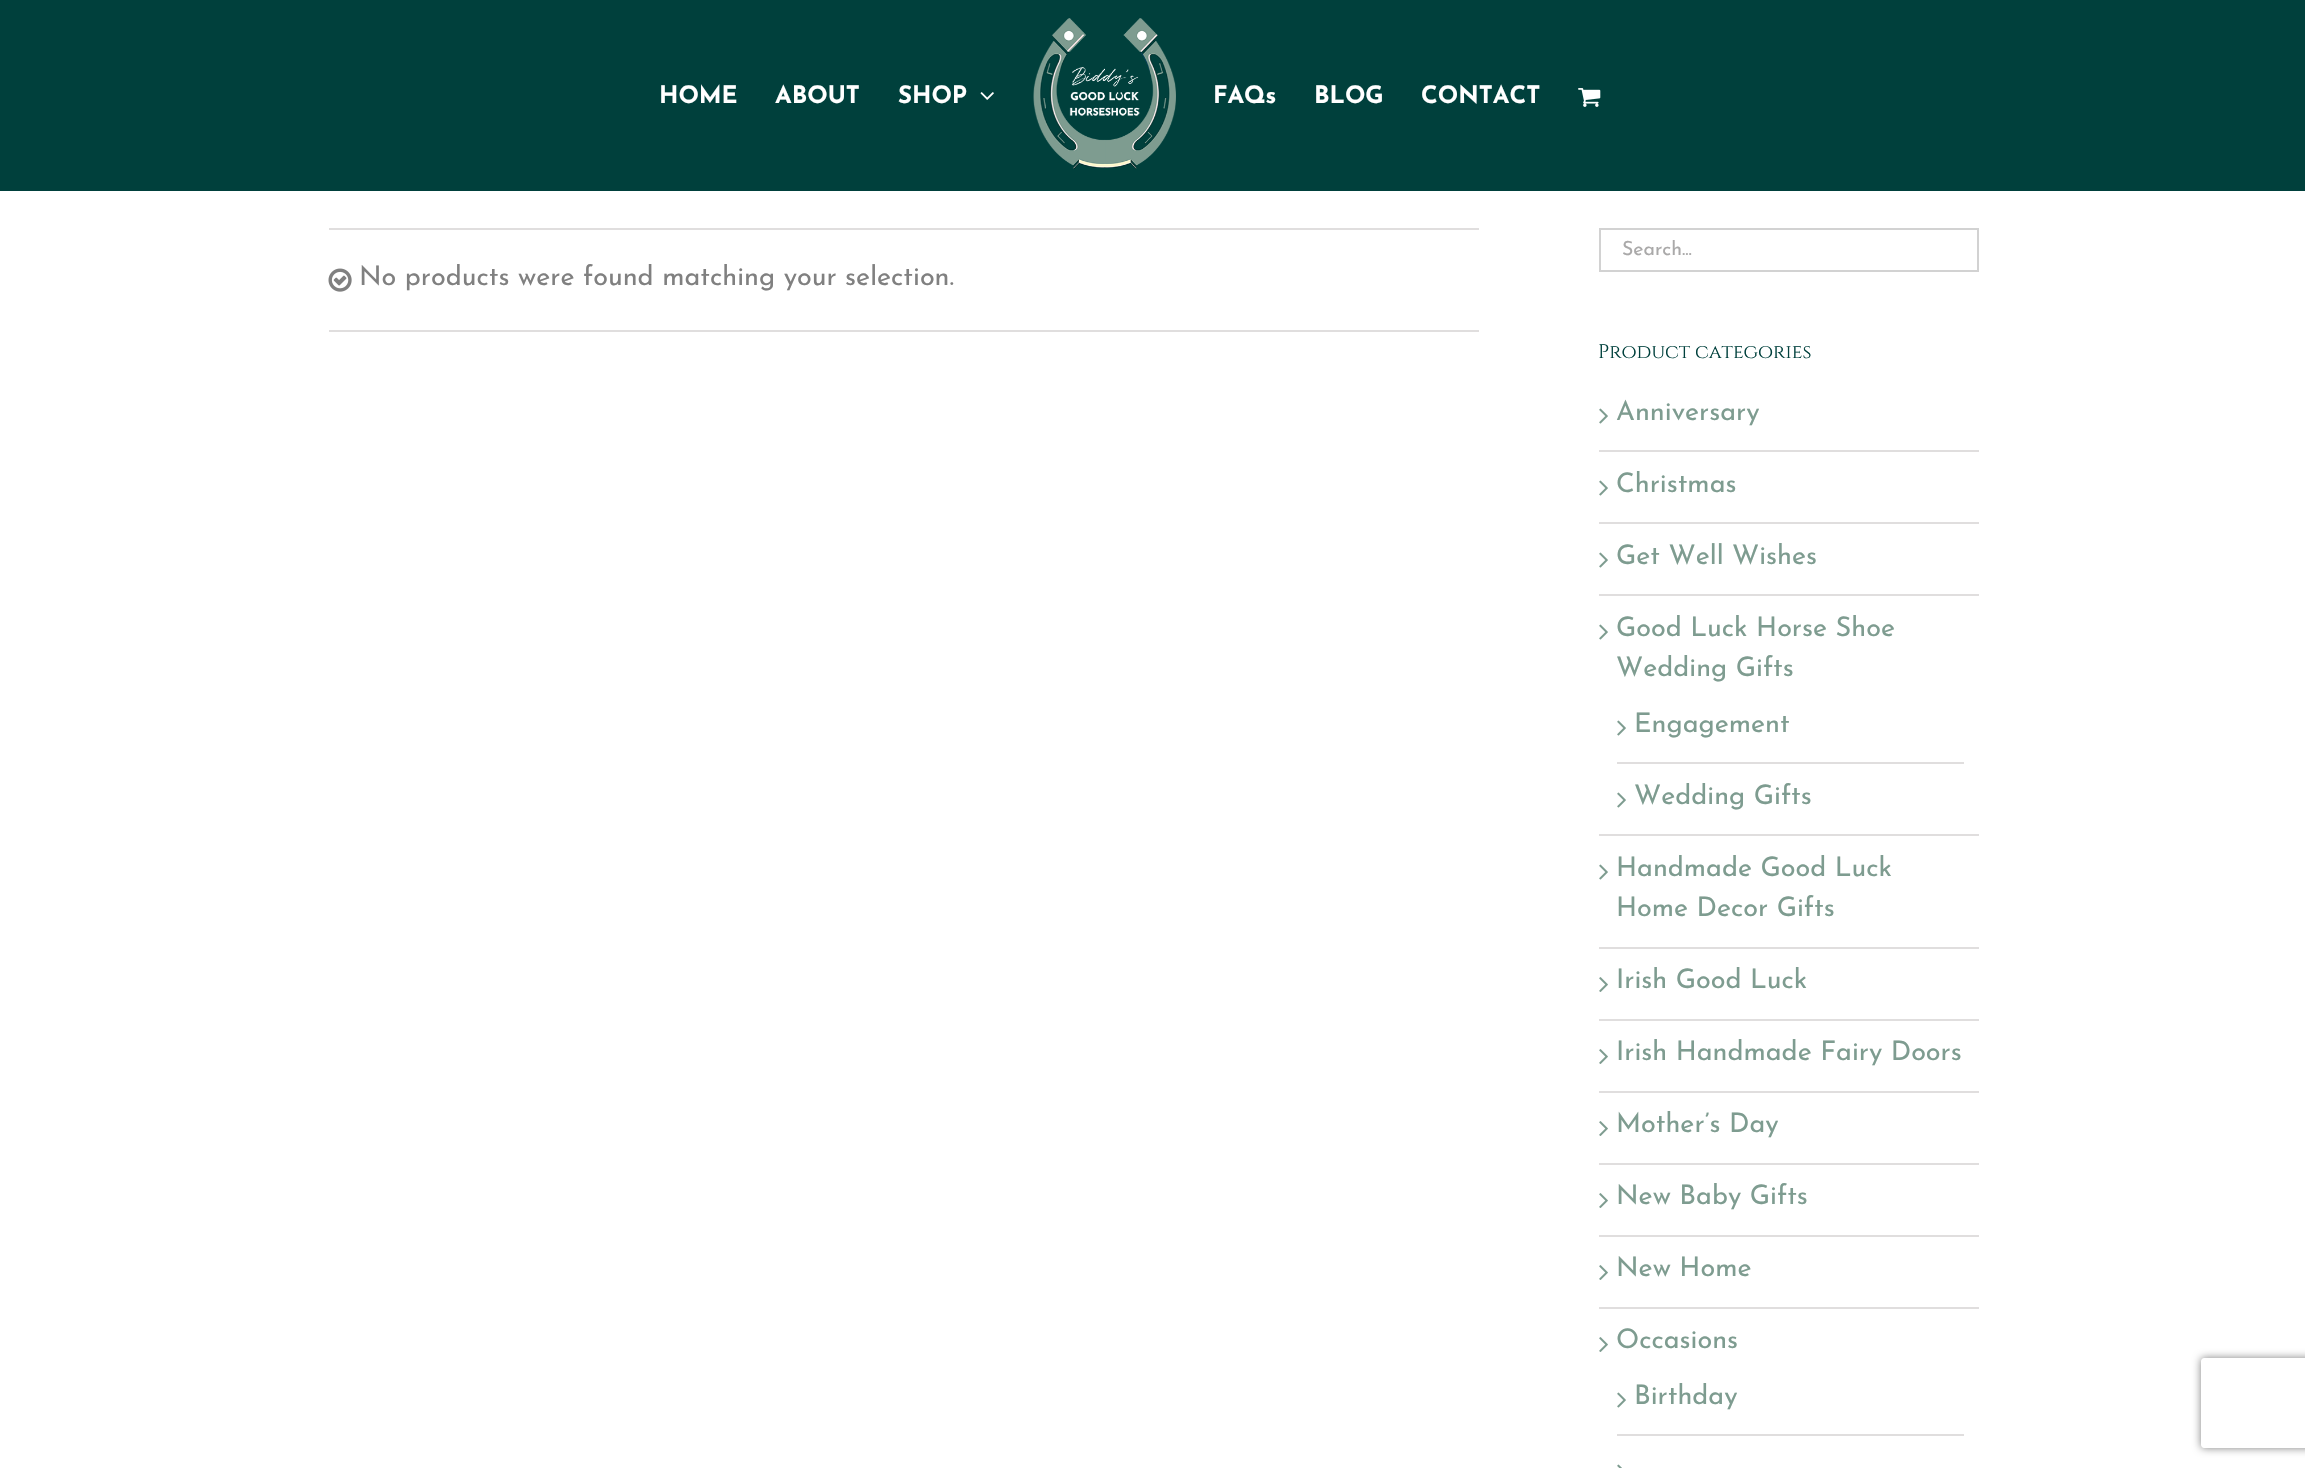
void draw(SkCanvas* canvas) {
	SkPaint fill;
	fill.setAntiAlias(true);
	auto makeFont = [&](const char* family, int weight, float size, bool italic = false) {
		SkFontStyle style(weight, SkFontStyle::kNormal_Width,
			italic ? SkFontStyle::kItalic_Slant : SkFontStyle::kUpright_Slant);
		SkFont result(fontMgr->matchFamilyStyle(family, style), size);
		result.setSubpixel(true);
		return result;
	};
	auto text = [&](const char* s, float x, float y, const SkFont& font) {
		canvas->drawString(s, x, y, font, fill);
	};
	auto box = [&](float l, float t, float r, float b) {
		canvas->drawRect(SkRect::MakeLTRB(l, t, r, b), fill);
	};
	auto picture = [&](const char* path, float l, float t, float r, float b) {
		auto image = SkImages::DeferredFromEncodedData(SkData::MakeFromFileName(path));
		canvas->drawImageRect(image, SkRect::MakeLTRB(l, t, r, b), SkSamplingOptions());
	};
	canvas->clear(0xFFFFFFFF);
	fill.setColor(0xFF00403C);
	box(0, 0, 2305, 191);
	picture("image0.png", 980, 92, 994, 100);
	picture("image1.png", 1033, 18, 1176, 169);
	picture("image2.png", 1578, 88, 1601, 107);
	fill.setColor(0xFFE0DEDE);
	box(329, 228, 1479, 230);
	box(329, 330, 1479, 332);
	picture("image3.png", 328, 268, 352, 292);
	fill.setStyle(SkPaint::kStroke_Style);
	fill.setStrokeWidth(2);
	fill.setColor(0xFFD2D2D2);
	canvas->drawRect(SkRect::MakeLTRB(1600, 229, 1978, 271), fill);
	fill.setStyle(SkPaint::kFill_Style);
	fill.setColor(0xFFE0DEDE);
	box(1599, 450, 1979, 452);
	picture("image4.png", 1599, 408, 1608, 424);
	box(1599, 522, 1979, 524);
	picture("image4.png", 1599, 480, 1608, 496);
	box(1599, 594, 1979, 596);
	picture("image4.png", 1599, 552, 1608, 568);
	box(1599, 834, 1979, 836);
	picture("image4.png", 1599, 624, 1608, 640);
	box(1617, 762, 1964, 764);
	picture("image4.png", 1617, 720, 1626, 736);
	picture("image4.png", 1617, 792, 1626, 808);
	box(1599, 947, 1979, 949);
	picture("image4.png", 1599, 864, 1608, 880);
	box(1599, 1019, 1979, 1021);
	picture("image5.png", 1599, 977, 1608, 992);
	box(1599, 1091, 1979, 1093);
	picture("image5.png", 1599, 1049, 1608, 1064);
	box(1599, 1163, 1979, 1165);
	picture("image5.png", 1599, 1121, 1608, 1136);
	box(1599, 1235, 1979, 1237);
	picture("image5.png", 1599, 1193, 1608, 1208);
	box(1599, 1307, 1979, 1309);
	picture("image5.png", 1599, 1265, 1608, 1280);
	picture("image5.png", 1599, 1337, 1608, 1352);
	box(1617, 1434, 1964, 1436);
	picture("image4.png", 1617, 1392, 1626, 1408);
	picture("image6.png", 1617, 1464, 1622, 1468);
	canvas->save();
	canvas->clipPath(SkPathBuilder(SkPathFillType::kEvenOdd).moveTo(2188, 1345).lineTo(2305, 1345).lineTo(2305, 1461).lineTo(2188, 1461).close().moveTo(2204, 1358).lineTo(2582, 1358).cubicTo(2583.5f, 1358, 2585, 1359.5f, 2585, 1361).lineTo(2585, 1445).cubicTo(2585, 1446.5f, 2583.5f, 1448, 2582, 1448).lineTo(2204, 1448).cubicTo(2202.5f, 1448, 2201, 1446.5f, 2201, 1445).lineTo(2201, 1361).cubicTo(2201, 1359.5f, 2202.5f, 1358, 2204, 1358).close().detach(), true);
	fill.setColor(0xFF808080);
	fill.setMaskFilter(SkMaskFilter::MakeBlur(kNormal_SkBlurStyle, 4));
	canvas->drawRoundRect(SkRect::MakeLTRB(2201, 1358, 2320, 1448), 3, 3, fill);
	fill.setMaskFilter(nullptr);
	canvas->restore();
	auto font1 = makeFont("Josefin Sans", 700, 24);
	fill.setColor(0xFFFFFFFF);
	text("HOME", 659, 103, font1);
	text("ABOUT", 775, 103, font1);
	text("SHOP", 898, 103, font1);
	text("FAQs", 1213, 103, font1);
	text("BLOG", 1314, 103, font1);
	text("CONTACT", 1421, 103, font1);
	auto font2 = makeFont("Josefin Sans", 400, 27);
	fill.setColor(0xFF808080);
	text("No products were found matching your selection.", 359, 285, font2);
	auto font3 = makeFont("Josefin Sans", 400, 19.5f);
	fill.setColor(0xFFAAA9A9);
	text("Search...", 1622, 255, font3);
	auto font4 = makeFont("Cinzel", 400, 19.5f);
	fill.setColor(0xFF00403C);
	text("Product categories", 1598, 358, font4);
	fill.setColor(0xFF7E9C90);
	text("Anniversary", 1616, 420, font2);
	text("Christmas", 1616, 492, font2);
	text("Get Well Wishes", 1616, 564, font2);
	text("Good Luck Horse Shoe", 1616, 636, font2);
	text("Wedding Gifts", 1616, 676, font2);
	text("Engagement", 1634, 732, font2);
	text("Wedding Gifts", 1634, 804, font2);
	text("Handmade Good Luck", 1616, 876, font2);
	text("Home Decor Gifts", 1616, 916, font2);
	text("Irish Good Luck", 1616, 988, font2);
	text("Irish Handmade Fairy Doors", 1616, 1060, font2);
	text("Mother’s Day", 1616, 1132, font2);
	text("New Baby Gifts", 1616, 1204, font2);
	text("New Home", 1616, 1276, font2);
	text("Occasions", 1616, 1348, font2);
	text("Birthday", 1634, 1404, font2);
}
